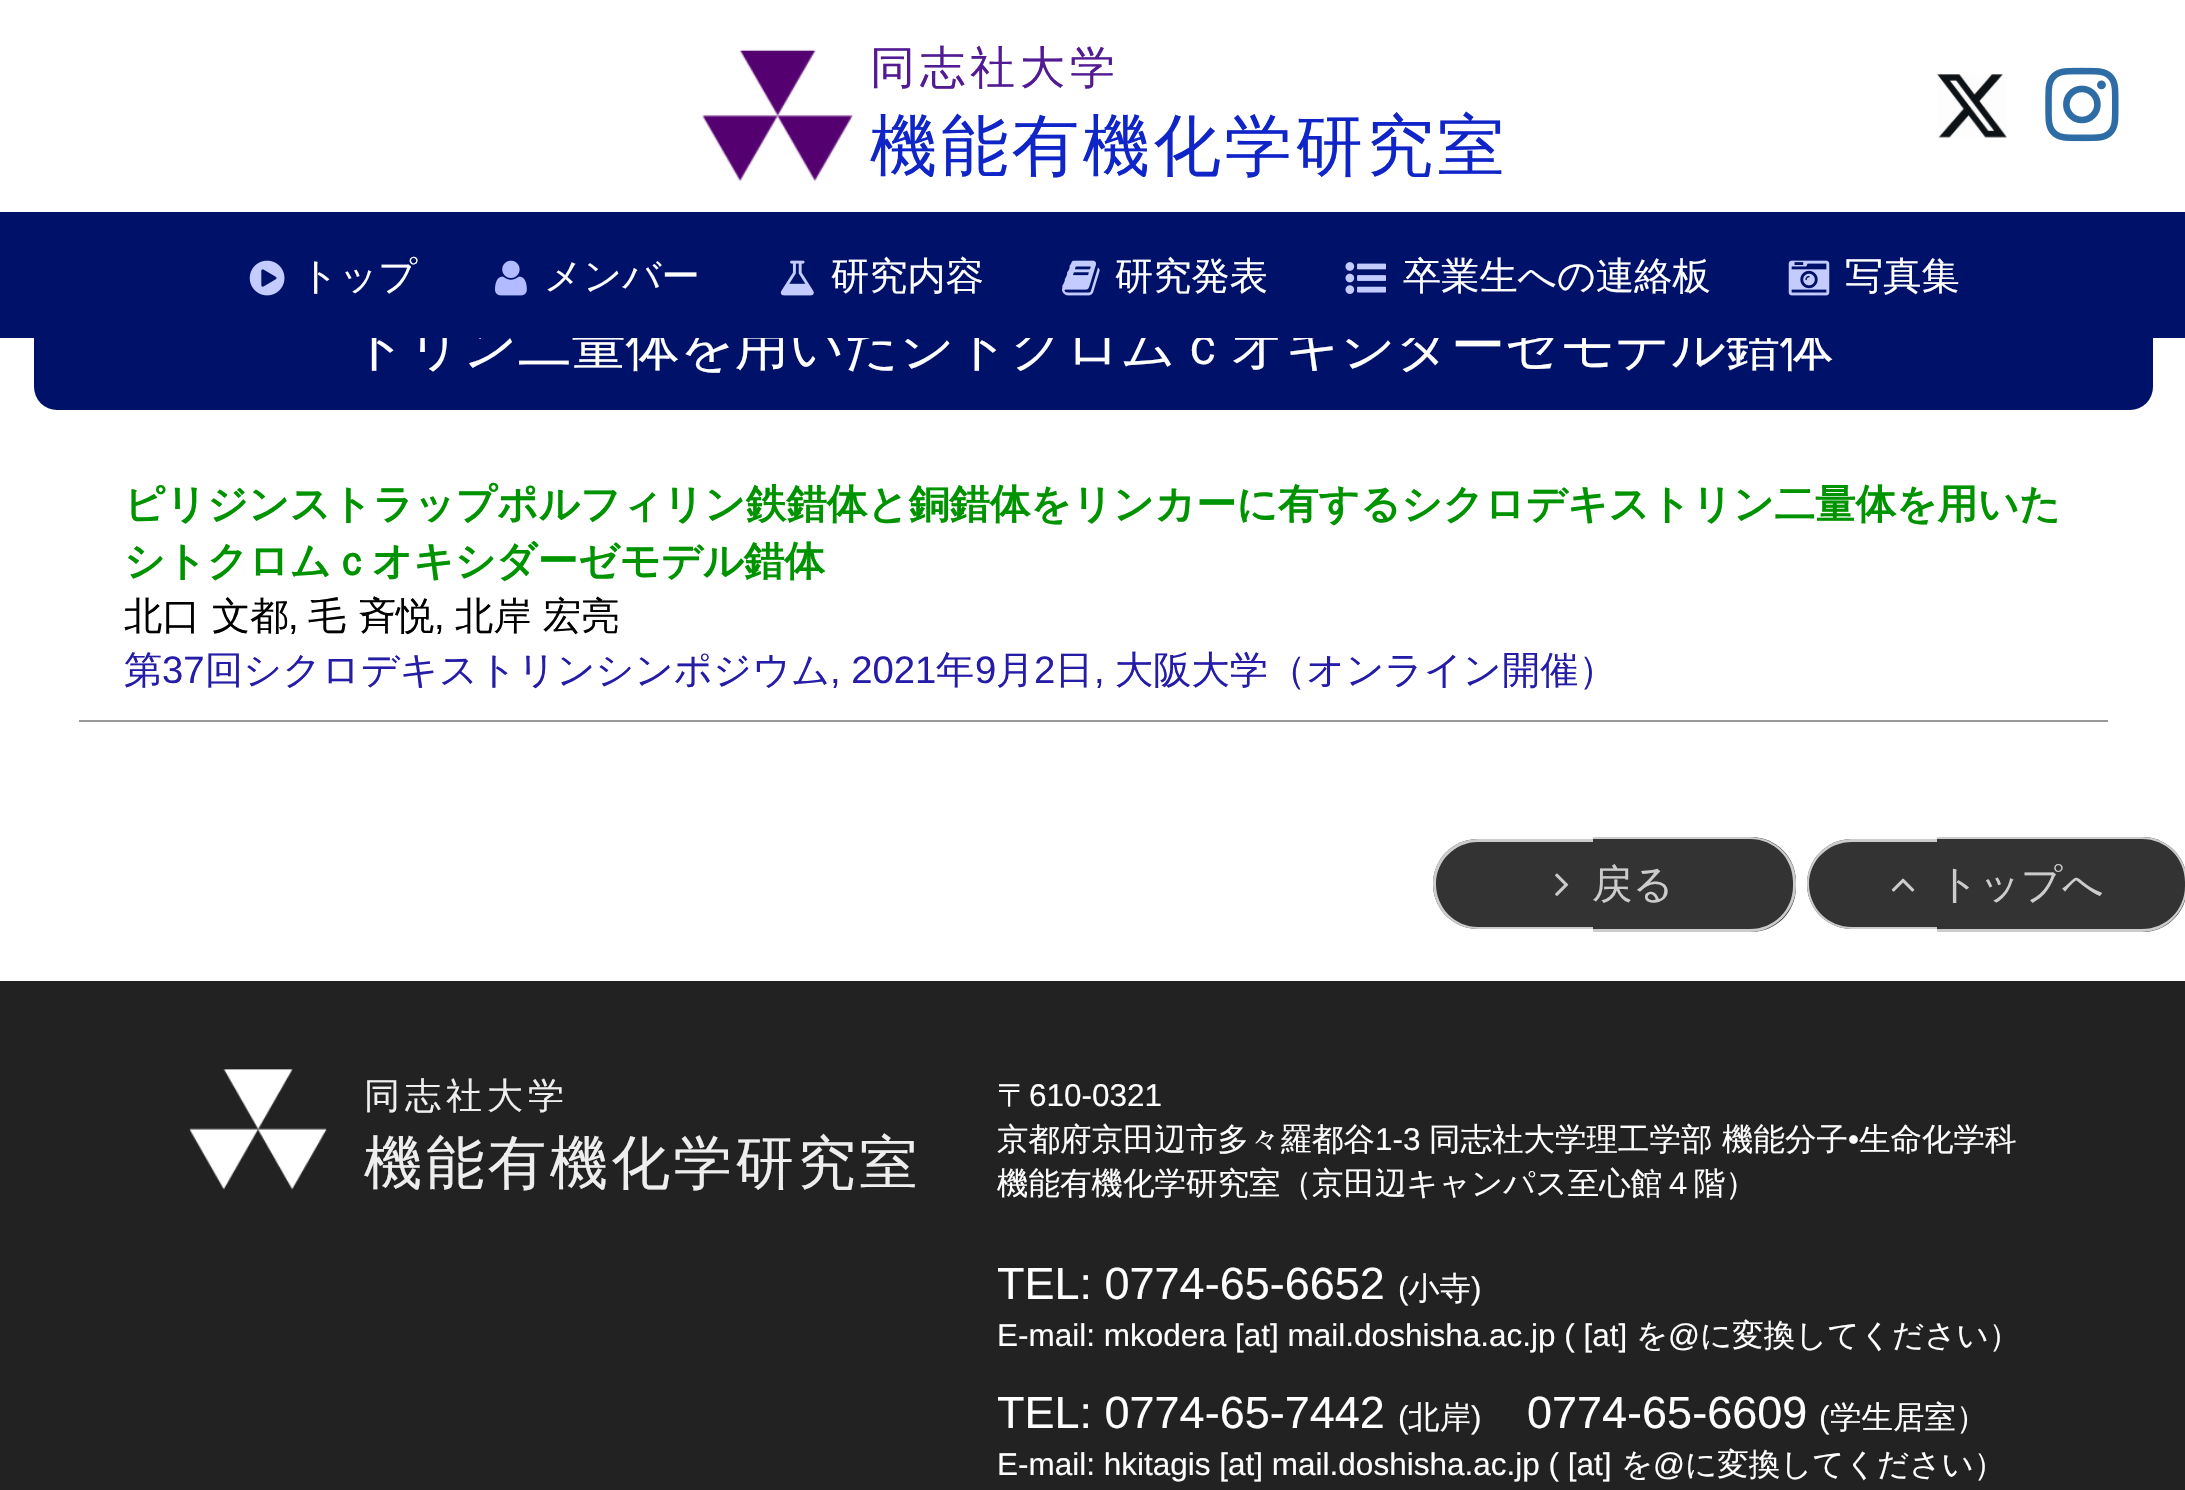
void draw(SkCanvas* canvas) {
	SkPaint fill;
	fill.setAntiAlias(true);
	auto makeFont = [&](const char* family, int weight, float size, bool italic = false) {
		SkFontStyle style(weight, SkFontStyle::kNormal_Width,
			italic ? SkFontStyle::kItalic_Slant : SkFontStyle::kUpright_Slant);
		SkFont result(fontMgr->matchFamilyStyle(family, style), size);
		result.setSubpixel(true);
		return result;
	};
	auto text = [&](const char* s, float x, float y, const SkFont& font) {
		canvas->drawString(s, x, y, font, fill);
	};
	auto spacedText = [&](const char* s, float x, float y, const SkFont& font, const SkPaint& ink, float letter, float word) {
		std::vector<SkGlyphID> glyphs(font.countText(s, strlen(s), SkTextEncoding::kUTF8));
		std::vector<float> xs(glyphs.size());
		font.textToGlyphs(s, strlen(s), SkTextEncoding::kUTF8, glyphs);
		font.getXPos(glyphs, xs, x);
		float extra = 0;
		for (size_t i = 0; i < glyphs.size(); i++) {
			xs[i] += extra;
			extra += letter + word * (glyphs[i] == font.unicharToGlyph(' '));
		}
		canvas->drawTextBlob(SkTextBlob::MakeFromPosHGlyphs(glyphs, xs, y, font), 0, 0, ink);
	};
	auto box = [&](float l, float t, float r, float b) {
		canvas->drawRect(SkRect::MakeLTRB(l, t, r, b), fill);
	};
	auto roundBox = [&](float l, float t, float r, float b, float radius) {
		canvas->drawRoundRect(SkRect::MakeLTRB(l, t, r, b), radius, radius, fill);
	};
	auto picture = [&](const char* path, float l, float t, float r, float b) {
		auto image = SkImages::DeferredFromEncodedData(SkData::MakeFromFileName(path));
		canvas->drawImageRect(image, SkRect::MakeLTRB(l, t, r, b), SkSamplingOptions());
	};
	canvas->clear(0xFFFFFFFF);
	fill.setColor(0xFF001169);
	roundBox(34, 205, 2153, 410, 23);
	fill.setColor(0xFFFFFFFF);
	box(40, 205, 2147, 212);
	picture("image0.png", 702, 49, 853, 182);
	picture("image1.png", 1937, 74, 2007, 138);
	picture("image2.png", 2045, 67, 2119, 142);
	fill.setColor(0xFF999999);
	box(79, 720, 2108, 722);
	fill.setColor(0xFF333333);
	canvas->drawPath(SkPathBuilder().moveTo(1478, 839).lineTo(1593, 839).lineTo(1593, 929).lineTo(1478, 929).cubicTo(1453, 929, 1433, 909, 1433, 884).cubicTo(1433, 859, 1453, 839, 1478, 839).close().detach(), fill);
	fill.setColor(0xFFCCCCCC);
	canvas->drawPath(SkPathBuilder(SkPathFillType::kEvenOdd).moveTo(1478, 839).lineTo(1593, 839).lineTo(1593, 929).lineTo(1478, 929).cubicTo(1453, 929, 1433, 909, 1433, 884).cubicTo(1433, 859, 1453, 839, 1478, 839).close().moveTo(1478, 842).lineTo(1593, 842).lineTo(1593, 927).lineTo(1478, 927).cubicTo(1455, 927, 1436, 908, 1436, 884).cubicTo(1436, 861, 1455, 842, 1478, 842).close().detach(), fill);
	picture("image9.png", 1555, 873, 1569, 896);
	fill.setColor(0xFF333333);
	canvas->drawPath(SkPathBuilder().moveTo(1593, 837).lineTo(1751, 837).cubicTo(1776, 837, 1796, 857, 1796, 882).lineTo(1796, 887).cubicTo(1796, 912, 1776, 932, 1751, 932).lineTo(1593, 932).close().detach(), fill);
	fill.setColor(0xFFCCCCCC);
	canvas->drawPath(SkPathBuilder(SkPathFillType::kEvenOdd).moveTo(1593, 837).lineTo(1750, 837).cubicTo(1775, 837, 1796, 857, 1796, 882).lineTo(1796, 886).cubicTo(1796, 911, 1775, 932, 1750, 932).lineTo(1593, 932).close().moveTo(1593, 839).lineTo(1750, 839).cubicTo(1774, 839, 1793, 858, 1793, 882).lineTo(1793, 886).cubicTo(1793, 910, 1774, 929, 1750, 929).lineTo(1593, 929).close().detach(), fill);
	fill.setColor(0xFF333333);
	canvas->drawPath(SkPathBuilder().moveTo(1852, 839).lineTo(1937, 839).lineTo(1937, 929).lineTo(1852, 929).cubicTo(1827, 929, 1807, 909, 1807, 884).cubicTo(1807, 859, 1827, 839, 1852, 839).close().detach(), fill);
	fill.setColor(0xFFCCCCCC);
	canvas->drawPath(SkPathBuilder(SkPathFillType::kEvenOdd).moveTo(1852, 839).lineTo(1937, 839).lineTo(1937, 929).lineTo(1852, 929).cubicTo(1827, 929, 1807, 909, 1807, 884).cubicTo(1807, 859, 1827, 839, 1852, 839).close().moveTo(1852, 842).lineTo(1937, 842).lineTo(1937, 927).lineTo(1852, 927).cubicTo(1828, 927, 1809, 908, 1809, 884).cubicTo(1809, 861, 1828, 842, 1852, 842).close().detach(), fill);
	picture("image10.png", 1891, 878, 1915, 892);
	fill.setColor(0xFF333333);
	canvas->drawPath(SkPathBuilder().moveTo(1937, 837).lineTo(2142, 837).cubicTo(2167, 837, 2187, 857, 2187, 882).lineTo(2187, 887).cubicTo(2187, 912, 2167, 932, 2142, 932).lineTo(1937, 932).close().detach(), fill);
	fill.setColor(0xFFCCCCCC);
	canvas->drawPath(SkPathBuilder(SkPathFillType::kEvenOdd).moveTo(1937, 837).lineTo(2142, 837).cubicTo(2167, 837, 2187, 857, 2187, 882).lineTo(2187, 886).cubicTo(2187, 911, 2167, 932, 2142, 932).lineTo(1937, 932).close().moveTo(1937, 839).lineTo(2142, 839).cubicTo(2166, 839, 2185, 858, 2185, 882).lineTo(2185, 886).cubicTo(2185, 910, 2166, 929, 2142, 929).lineTo(1937, 929).close().detach(), fill);
	fill.setColor(0xFF222222);
	box(0, 981, 2185, 1490);
	picture("image11.png", 189, 1069, 327, 1190);
	auto font1 = makeFont("WenQuanYi Zen Hei", 500, 45);
	fill.setColor(0xFF531B93);
	spacedText("同志社大学", 870, 83, font1, fill, 5, 0);
	auto font2 = makeFont("WenQuanYi Zen Hei", 500, 67.5f);
	fill.setColor(0xFF0F25C8);
	spacedText("機能有機化学研究室", 870, 169, font2, fill, 3.4f, 0);
	auto font3 = makeFont("WenQuanYi Zen Hei", 500, 54);
	fill.setColor(0xFFFFFFFF);
	text("トリン二量体を用いたシトクロムｃオキシダーゼモデル錯体", 352, 364, font3);
	fill.setColor(0xFF001169);
	box(0, 212, 2185, 338);
	picture("image8.png", 1788, 260, 1830, 296);
	picture("image7.png", 1345, 262, 1386, 294);
	picture("image6.png", 1062, 260, 1100, 296);
	picture("image5.png", 780, 260, 814, 296);
	picture("image4.png", 495, 260, 527, 296);
	picture("image3.png", 249, 260, 285, 296);
	auto font4 = makeFont("WenQuanYi Zen Hei", 500, 38.25f);
	fill.setColor(0xFFFFFFFF);
	text("写真集", 1845, 289, font4);
	text("卒業生への連絡板", 1403, 289, font4);
	text("研究発表", 1115, 289, font4);
	text("研究内容", 831, 289, font4);
	text("メンバー", 544, 289, font4);
	text("トップ", 300, 289, font4);
	auto font5 = makeFont("WenQuanYi Zen Hei", 700, 40.5f);
	fill.setColor(0xFF009300);
	text("ピリジンストラップポルフィリン鉄錯体と銅錯体をリンカーに有するシクロデキストリン二量体を用いた", 124, 518, font5);
	text("シトクロムｃオキシダーゼモデル錯体", 124, 575, font5);
	fill.setColor(0xFF000000);
	text("北口 文都", 124, 629, font4);
	auto font6 = makeFont("Liberation Sans", 400, 38.25f);
	text(",", 288, 629, font6);
	text("毛 斉悦", 308, 629, font4);
	text(",", 434, 629, font6);
	text("北岸 宏亮", 455, 629, font4);
	fill.setColor(0xFF251CA7);
	text("第", 124, 683, font4);
	text("37", 162, 683, font6);
	text("回シクロデキストリンシンポジウム", 205, 683, font4);
	text(", 2021", 830, 683, font6);
	text("年", 936, 683, font4);
	text("9", 975, 683, font6);
	text("月", 996, 683, font4);
	text("2", 1034, 683, font6);
	text("日", 1055, 683, font4);
	text(",", 1094, 683, font6);
	text("大阪大学（オンライン開催）", 1115, 683, font4);
	auto font7 = makeFont("WenQuanYi Zen Hei", 500, 40.5f);
	fill.setColor(0xFFCCCCCC);
	text("戻る", 1592, 898, font7);
	text("トップへ", 1938, 898, font7);
	auto font8 = makeFont("WenQuanYi Zen Hei", 500, 36);
	fill.setColor(0xFFEEEEEE);
	spacedText("同志社大学", 364, 1108, font8, fill, 5, 0);
	auto font9 = makeFont("WenQuanYi Zen Hei", 500, 58.5f);
	spacedText("機能有機化学研究室", 364, 1183, font9, fill, 3.4f, 0);
	auto font10 = makeFont("WenQuanYi Zen Hei", 500, 31.5f);
	fill.setColor(0xFFFFFFFF);
	text("〒", 997, 1106, font10);
	auto font11 = makeFont("Liberation Sans", 400, 31.5f);
	text("610-0321", 1029, 1106, font11);
	text("京都府京田辺市多々羅都谷", 997, 1150, font10);
	text("1-3", 1375, 1150, font11);
	text("同志社大学理工学部 機能分子", 1429, 1150, font10);
	text("•", 1848, 1150, font11);
	text("生命化学科", 1859, 1150, font10);
	text("機能有機化学研究室（京田辺キャンパス至心館４階）", 997, 1194, font10);
	auto font12 = makeFont("Liberation Sans", 400, 45);
	text("TEL: 0774-65-6652", 997, 1299, font12);
	text("(", 1398, 1299, font11);
	text("小寺", 1408, 1299, font10);
	text(")", 1471, 1299, font11);
	text("E-mail: mkodera [at] mail.doshisha.ac.jp ( [at]", 997, 1346, font11);
	text("を", 1636, 1346, font10);
	text("@", 1668, 1346, font11);
	text("に変換してください）", 1700, 1346, font10);
	text("TEL: 0774-65-7442", 997, 1428, font12);
	text("(", 1398, 1428, font11);
	text("北岸", 1408, 1428, font10);
	text(")", 1471, 1428, font11);
	text("0774-65-6609", 1527, 1428, font12);
	text("(", 1819, 1428, font11);
	text("学生居室）", 1830, 1428, font10);
	text("E-mail: hkitagis [at] mail.doshisha.ac.jp ( [at]", 997, 1475, font11);
	text("を", 1621, 1475, font10);
	text("@", 1653, 1475, font11);
	text("に変換してください）", 1685, 1475, font10);
}
